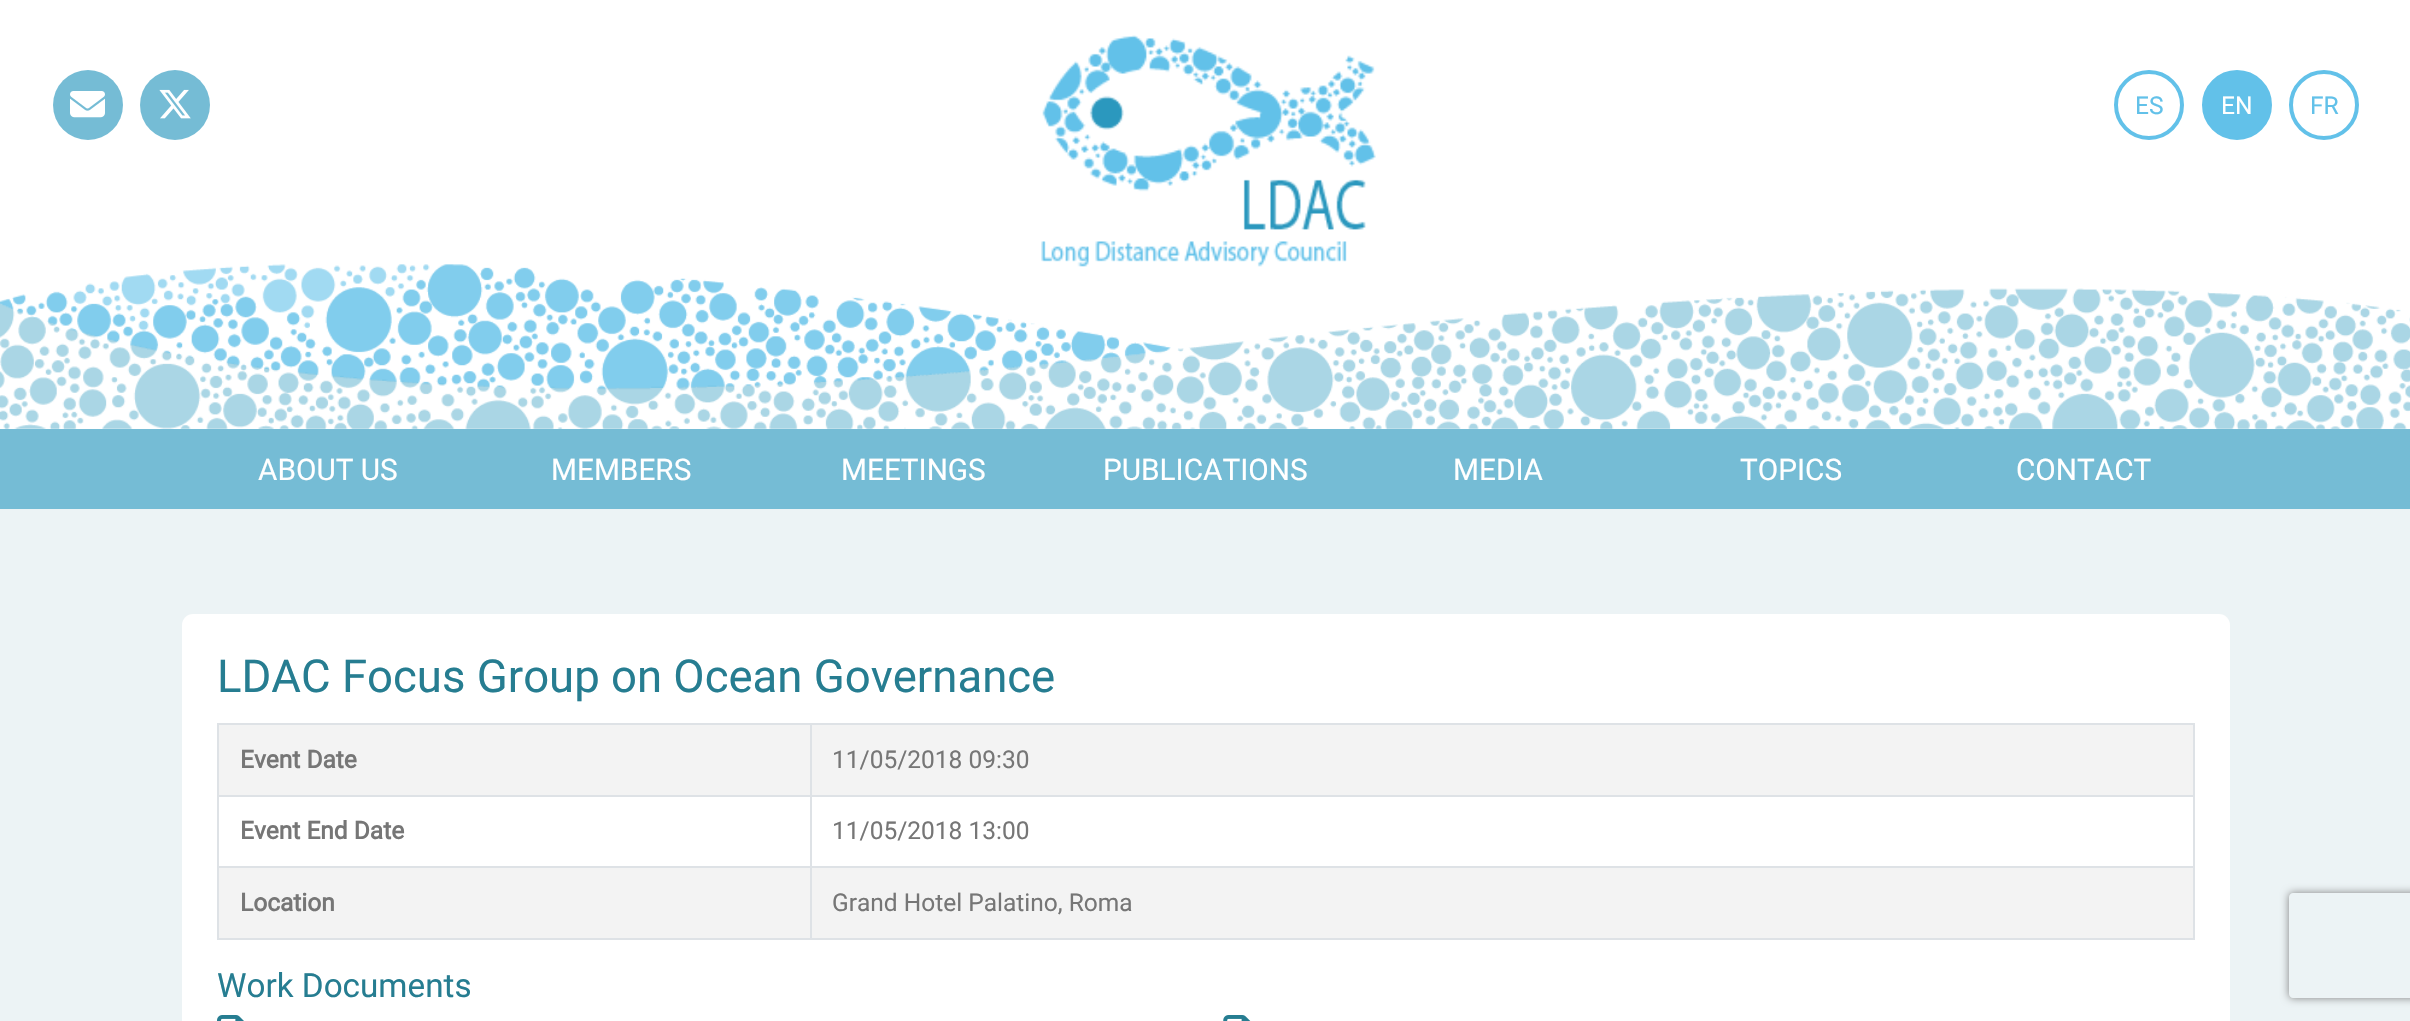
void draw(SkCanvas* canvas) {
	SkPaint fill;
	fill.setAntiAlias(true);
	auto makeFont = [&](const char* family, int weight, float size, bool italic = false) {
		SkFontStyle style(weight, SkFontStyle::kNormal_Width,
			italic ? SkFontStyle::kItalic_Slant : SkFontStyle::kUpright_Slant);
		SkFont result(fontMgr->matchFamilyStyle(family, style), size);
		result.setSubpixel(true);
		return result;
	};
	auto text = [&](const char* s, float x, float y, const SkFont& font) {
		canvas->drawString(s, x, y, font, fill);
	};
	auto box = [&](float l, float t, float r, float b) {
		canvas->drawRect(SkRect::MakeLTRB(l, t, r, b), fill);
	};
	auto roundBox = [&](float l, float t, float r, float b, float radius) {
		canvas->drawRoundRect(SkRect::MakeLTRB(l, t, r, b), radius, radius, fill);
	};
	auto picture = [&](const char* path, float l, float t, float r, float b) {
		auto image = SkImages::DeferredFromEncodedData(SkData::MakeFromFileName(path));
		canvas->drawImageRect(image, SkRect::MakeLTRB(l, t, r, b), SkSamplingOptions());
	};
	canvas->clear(0xFFECF3F5);
	fill.setColor(0xFFFFFFFF);
	box(0, 0, 2410, 429);
	picture("image3.png", 0, 264, 2410, 429);
	picture("image0.png", 1041, 35, 1376, 267);
	fill.setColor(0xFF75BCD5);
	canvas->drawCircle(88, 105, 35, fill);
	picture("image1.png", 70, 91, 105, 118);
	canvas->drawCircle(175, 105, 35, fill);
	picture("image2.png", 159, 89, 191, 119);
	fill.setStyle(SkPaint::kStroke_Style);
	fill.setStrokeWidth(4);
	fill.setColor(0xFF62C1E9);
	canvas->drawCircle(2149, 105, 33, fill);
	fill.setStyle(SkPaint::kFill_Style);
	canvas->drawCircle(2237, 105, 33, fill);
	fill.setStyle(SkPaint::kStroke_Style);
	canvas->drawCircle(2237, 105, 33, fill);
	canvas->drawCircle(2324, 105, 33, fill);
	fill.setStyle(SkPaint::kFill_Style);
	fill.setColor(0xFF75BCD5);
	box(0, 429, 2410, 509);
	fill.setColor(0xFFFFFFFF);
	roundBox(182, 614, 2230, 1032, 11);
	fill.setColor(0xFFDEE2E6);
	box(217, 723, 2195, 725);
	box(2193, 723, 2195, 940);
	box(217, 938, 2195, 940);
	box(217, 723, 219, 940);
	fill.setColor(0xFFF3F3F3);
	box(219, 725, 2193, 795);
	fill.setColor(0xFFDEE2E6);
	box(810, 795, 2195, 797);
	box(810, 866, 2195, 868);
	fill.setColor(0xFFF3F3F3);
	box(219, 868, 2193, 938);
	fill.setColor(0xFFDEE2E6);
	box(810, 866, 812, 940);
	box(217, 866, 812, 868);
	box(810, 795, 812, 868);
	box(217, 795, 812, 797);
	box(810, 723, 812, 796);
	picture("image4.png", 217, 1015, 244, 1021);
	picture("image5.png", 1223, 1015, 1251, 1021);
	canvas->save();
	canvas->clipPath(SkPathBuilder(SkPathFillType::kEvenOdd).moveTo(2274, 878).lineTo(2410, 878).lineTo(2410, 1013).lineTo(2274, 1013).close().moveTo(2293, 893).lineTo(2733, 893).cubicTo(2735, 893, 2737, 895, 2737, 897).lineTo(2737, 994).cubicTo(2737, 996, 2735, 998, 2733, 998).lineTo(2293, 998).cubicTo(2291, 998, 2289, 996, 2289, 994).lineTo(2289, 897).cubicTo(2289, 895, 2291, 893, 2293, 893).close().detach(), true);
	fill.setColor(0xFF808080);
	fill.setMaskFilter(SkMaskFilter::MakeBlur(kNormal_SkBlurStyle, 4.5f));
	canvas->drawRoundRect(SkRect::MakeLTRB(2289, 893, 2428, 998), 4, 4, fill);
	fill.setMaskFilter(nullptr);
	canvas->restore();
	auto font1 = makeFont("Roboto", 400, 24.5f);
	fill.setColor(0xFF62C1E9);
	text("ES", 2135, 114, font1);
	fill.setColor(0xFFFFFFFF);
	text("EN", 2221, 114, font1);
	fill.setColor(0xFF62C1E9);
	text("FR", 2310, 114, font1);
	auto font2 = makeFont("Roboto", 400, 29.75f);
	fill.setColor(0xFFFFFFFF);
	text("ABOUT US", 258, 480, font2);
	text("MEMBERS", 551, 480, font2);
	text("MEETINGS", 841, 480, font2);
	text("PUBLICATIONS", 1103, 480, font2);
	text("MEDIA", 1453, 480, font2);
	text("TOPICS", 1740, 480, font2);
	text("CONTACT", 2016, 480, font2);
	auto font3 = makeFont("Roboto", 400, 45.5f);
	fill.setColor(0xFF267D91);
	text("LDAC Focus Group on Ocean Governance", 217, 692, font3);
	auto font4 = makeFont("Roboto", 700, 24.5f);
	fill.setColor(0xFF767676);
	text("Event Date", 240, 768, font4);
	text("11/05/2018 09:30", 832, 768, font1);
	text("Event End Date", 240, 839, font4);
	text("11/05/2018 13:00", 832, 839, font1);
	text("Location", 240, 911, font4);
	text("Grand Hotel Palatino, Roma", 832, 911, font1);
	auto font5 = makeFont("Roboto", 400, 33.25f);
	fill.setColor(0xFF267D91);
	text("Work Documents", 217, 997, font5);
}
